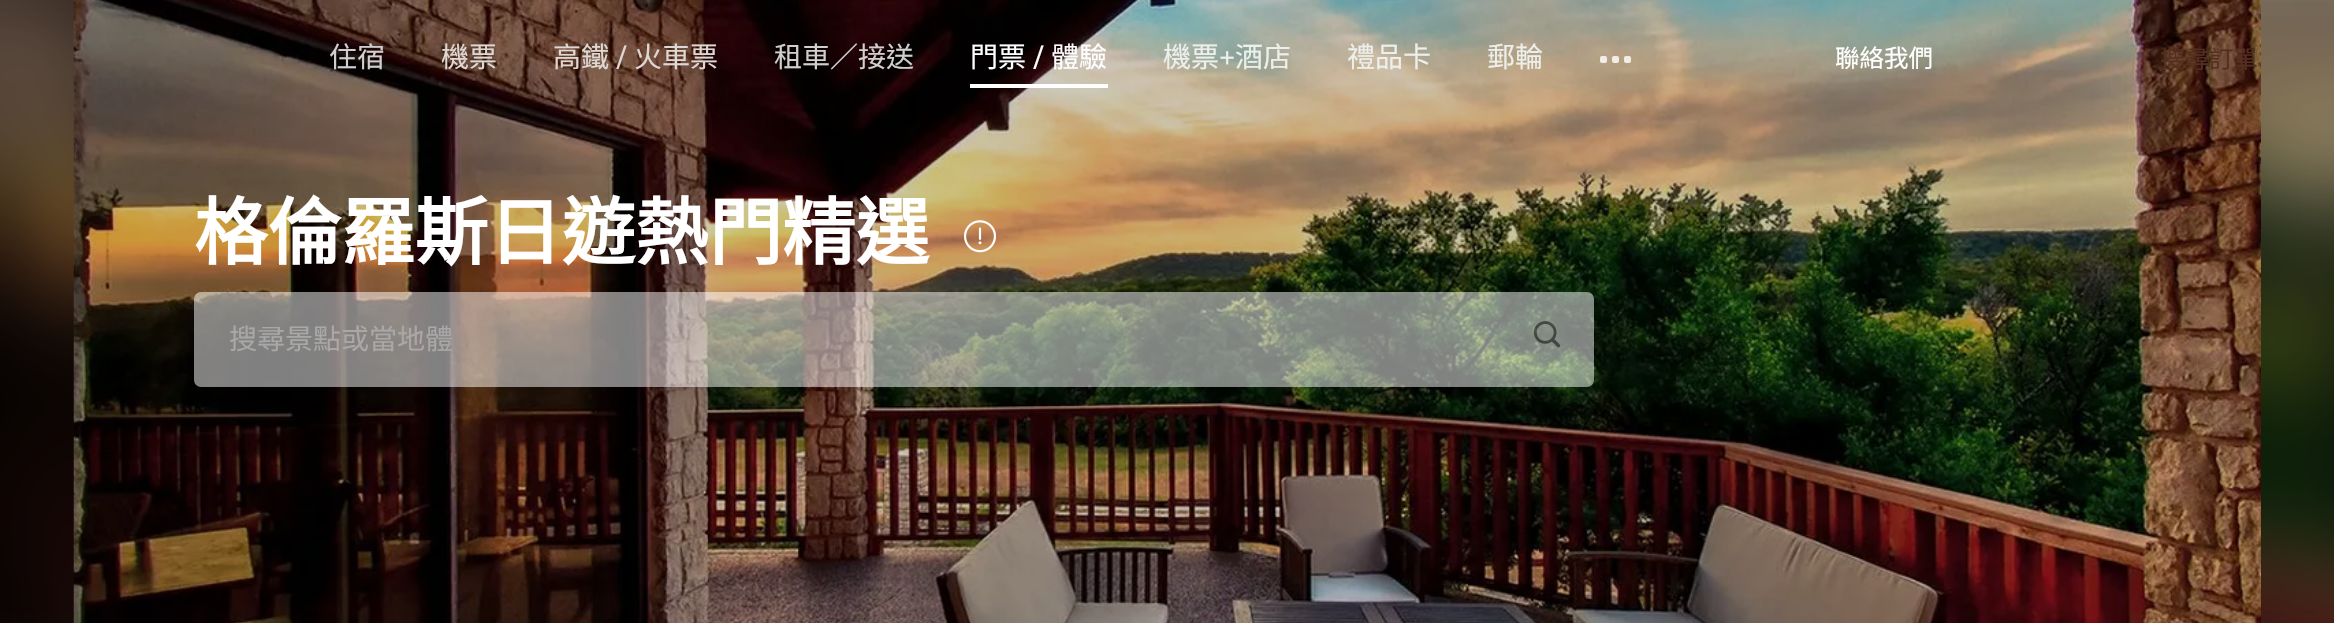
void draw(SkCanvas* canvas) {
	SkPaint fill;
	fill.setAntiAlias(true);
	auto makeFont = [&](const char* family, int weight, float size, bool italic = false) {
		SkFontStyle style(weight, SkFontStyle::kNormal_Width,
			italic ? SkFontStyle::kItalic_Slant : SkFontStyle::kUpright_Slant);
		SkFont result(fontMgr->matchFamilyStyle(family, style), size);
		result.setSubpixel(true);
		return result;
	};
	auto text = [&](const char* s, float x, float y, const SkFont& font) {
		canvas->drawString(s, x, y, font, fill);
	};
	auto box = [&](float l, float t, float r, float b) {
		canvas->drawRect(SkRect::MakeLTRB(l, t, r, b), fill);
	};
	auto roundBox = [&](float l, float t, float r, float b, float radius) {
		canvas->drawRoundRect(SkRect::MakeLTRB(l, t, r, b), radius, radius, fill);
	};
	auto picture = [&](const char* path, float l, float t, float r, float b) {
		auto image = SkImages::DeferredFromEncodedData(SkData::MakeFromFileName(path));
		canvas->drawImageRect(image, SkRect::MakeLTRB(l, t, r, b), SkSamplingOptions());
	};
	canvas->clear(0xFFFFFFFF);
	picture("image0.png", 0, 0, 2334, 623);
	picture("image1.png", 73, 0, 2261, 623);
	fill.setColor(0xFFFFFFFF);
	box(970, 84, 1108, 88);
	fill.setColor(0xCCFFFFFF);
	roundBox(1600, 56, 1607, 63, 2);
	roundBox(1612, 56, 1619, 63, 2);
	roundBox(1624, 56, 1631, 63, 2);
	picture("image2.png", 964, 220, 996, 253);
	canvas->save();
	canvas->clipPath(SkPathBuilder(SkPathFillType::kEvenOdd).moveTo(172, 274).lineTo(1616, 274).lineTo(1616, 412).lineTo(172, 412).close().moveTo(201, 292).lineTo(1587, 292).cubicTo(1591, 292, 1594, 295, 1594, 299).lineTo(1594, 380).cubicTo(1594, 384, 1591, 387, 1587, 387).lineTo(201, 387).cubicTo(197, 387, 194, 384, 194, 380).lineTo(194, 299).cubicTo(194, 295, 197, 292, 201, 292).close().detach(), true);
	fill.setColor(0x26000000);
	fill.setMaskFilter(SkMaskFilter::MakeBlur(kNormal_SkBlurStyle, 7));
	canvas->drawRoundRect(SkRect::MakeLTRB(194, 296, 1594, 390), 7, 7, fill);
	fill.setMaskFilter(nullptr);
	canvas->restore();
	fill.setColor(0x80FFFFFF);
	roundBox(194, 292, 1594, 387, 7);
	picture("image3.png", 1533, 321, 1561, 348);
	auto font1 = makeFont("Noto Sans CJK HK", 400, 28);
	fill.setColor(0xFFD0CECE);
	text("住宿", 329, 67, font1);
	fill.setColor(0xFFDED8D5);
	text("機票", 441, 67, font1);
	text("高鐵", 553, 67, font1);
	auto font2 = makeFont("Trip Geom", 400, 28);
	text("/", 616, 67, font2);
	text("火車票", 634, 67, font1);
	fill.setColor(0xFFD0CECE);
	text("租車／接送", 774, 67, font1);
	fill.setColor(0xFFFFFFFF);
	text("門票", 970, 67, font1);
	text("/", 1033, 67, font2);
	text("體驗", 1051, 67, font1);
	fill.setColor(0xFFEDEFEC);
	text("機票", 1163, 67, font1);
	text("+", 1219, 67, font2);
	text("酒店", 1235, 67, font1);
	text("禮品卡", 1347, 67, font1);
	text("郵輪", 1487, 67, font1);
	auto font3 = makeFont("Noto Sans CJK HK", 400, 24.5f);
	fill.setColor(0xFFFFFFFF);
	text("聯絡我們", 1835, 67, font3);
	fill.setColor(0xFF522F1E);
	text("搜尋訂單", 2160, 68, font3);
	auto font4 = makeFont("Noto Sans CJK HK", 700, 73.5f);
	fill.setColor(0xFFFFFFFF);
	text("格倫羅斯日遊熱門精選", 194, 259, font4);
	fill.setColor(0xFFAAA8A7);
	text("搜尋景點或當地體", 229, 349, font1);
}
